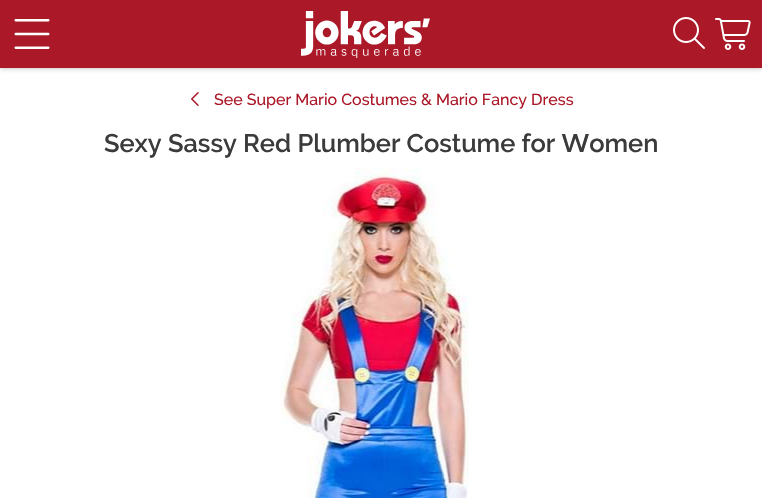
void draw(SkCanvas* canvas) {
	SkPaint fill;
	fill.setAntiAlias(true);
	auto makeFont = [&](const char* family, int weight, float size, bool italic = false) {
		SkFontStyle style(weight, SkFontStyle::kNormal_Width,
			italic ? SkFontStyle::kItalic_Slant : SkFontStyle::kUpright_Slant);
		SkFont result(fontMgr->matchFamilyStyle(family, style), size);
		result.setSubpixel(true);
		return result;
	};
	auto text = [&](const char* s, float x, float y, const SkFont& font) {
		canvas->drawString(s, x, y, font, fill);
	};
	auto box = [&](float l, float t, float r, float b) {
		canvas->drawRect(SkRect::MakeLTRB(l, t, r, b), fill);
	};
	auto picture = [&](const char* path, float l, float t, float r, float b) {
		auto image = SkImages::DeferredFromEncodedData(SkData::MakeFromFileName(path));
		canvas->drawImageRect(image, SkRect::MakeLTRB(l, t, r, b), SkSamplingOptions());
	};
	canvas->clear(0xFFFFFFFF);
	fill.setColor(0x4D000000);
	fill.setMaskFilter(SkMaskFilter::MakeBlur(kNormal_SkBlurStyle, 2.5f));
	canvas->drawRect(SkRect::MakeLTRB(0, 0, 762, 68), fill);
	fill.setMaskFilter(nullptr);
	fill.setColor(0xFFAB1828);
	box(0, 0, 762, 68);
	picture("image0.png", 14, 19, 50, 49);
	picture("image1.png", 301, 11, 430, 58);
	picture("image2.png", 673, 17, 705, 49);
	picture("image3.png", 715, 18, 751, 50);
	picture("image4.png", 191, 92, 199, 106);
	picture("image5.png", 280, 168, 469, 498);
	auto font1 = makeFont("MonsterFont", 500, 16);
	text("See Super Mario Costumes & Mario Fancy Dress", 214, 105, font1);
	auto font2 = makeFont("MonsterFont", 600, 25.4f);
	fill.setColor(0xFF3B3B3B);
	text("Sexy Sassy Red Plumber Costume for Women", 104, 152, font2);
}
